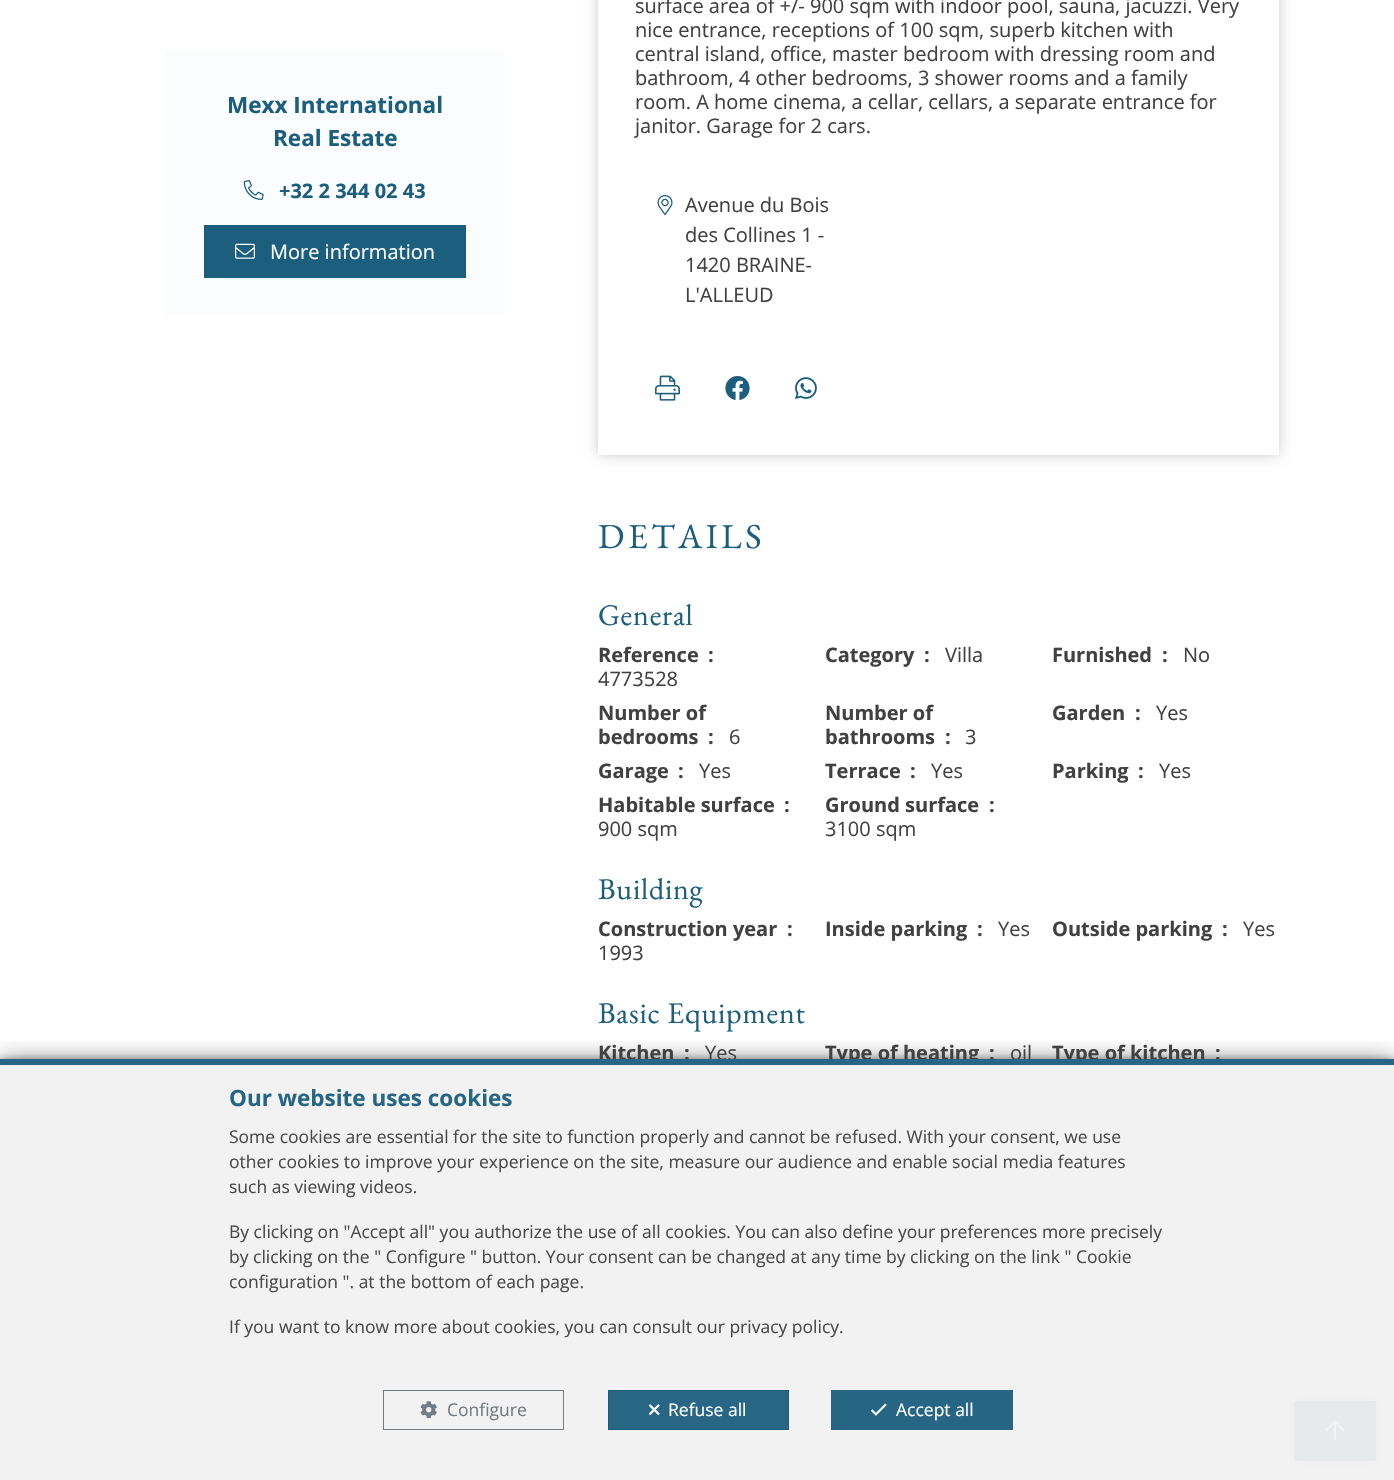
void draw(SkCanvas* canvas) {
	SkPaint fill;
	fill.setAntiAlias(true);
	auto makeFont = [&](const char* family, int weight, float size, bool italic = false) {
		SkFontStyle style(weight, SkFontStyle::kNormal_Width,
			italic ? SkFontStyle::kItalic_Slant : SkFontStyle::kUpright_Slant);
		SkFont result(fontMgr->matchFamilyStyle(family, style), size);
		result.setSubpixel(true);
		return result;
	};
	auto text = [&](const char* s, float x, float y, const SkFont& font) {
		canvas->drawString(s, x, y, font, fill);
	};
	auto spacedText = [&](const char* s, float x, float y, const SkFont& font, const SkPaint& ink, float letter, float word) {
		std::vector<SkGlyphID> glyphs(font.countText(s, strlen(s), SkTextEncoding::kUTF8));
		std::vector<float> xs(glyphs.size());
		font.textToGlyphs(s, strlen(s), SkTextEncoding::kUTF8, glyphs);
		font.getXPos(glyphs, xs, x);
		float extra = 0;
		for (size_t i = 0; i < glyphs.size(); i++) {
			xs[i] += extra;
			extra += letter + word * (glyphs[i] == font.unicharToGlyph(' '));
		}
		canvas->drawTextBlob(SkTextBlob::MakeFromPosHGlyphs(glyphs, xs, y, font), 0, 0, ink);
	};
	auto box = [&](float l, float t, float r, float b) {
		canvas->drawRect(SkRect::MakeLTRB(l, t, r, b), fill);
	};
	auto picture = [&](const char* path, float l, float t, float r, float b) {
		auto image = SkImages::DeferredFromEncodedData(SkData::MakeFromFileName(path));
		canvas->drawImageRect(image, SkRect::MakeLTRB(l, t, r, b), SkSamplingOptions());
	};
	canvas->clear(0xFFFFFFFF);
	fill.setColor(0xFFFBFCFE);
	box(166, 50, 504, 315);
	picture("image0.png", 243, 180, 264, 200);
	fill.setColor(0xFF1B5E7E);
	box(204, 225, 466, 278);
	picture("image1.png", 235, 243, 255, 259);
	canvas->save();
	canvas->clipPath(SkPathBuilder(SkPathFillType::kEvenOdd).moveTo(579, 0).lineTo(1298, 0).lineTo(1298, 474).lineTo(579, 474).close().moveTo(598, -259).lineTo(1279, -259).lineTo(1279, 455).lineTo(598, 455).close().detach(), true);
	fill.setColor(0x33000000);
	fill.setMaskFilter(SkMaskFilter::MakeBlur(kNormal_SkBlurStyle, 6));
	canvas->drawRect(SkRect::MakeLTRB(598, -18, 1279, 455), fill);
	fill.setMaskFilter(nullptr);
	canvas->restore();
	picture("image2.png", 657, 195, 673, 215);
	picture("image3.png", 655, 375, 680, 401);
	picture("image4.png", 725, 376, 750, 400);
	picture("image5.png", 795, 377, 817, 399);
	fill.setColor(0x66000000);
	fill.setMaskFilter(SkMaskFilter::MakeBlur(kNormal_SkBlurStyle, 6));
	canvas->drawRect(SkRect::MakeLTRB(1294, 1401, 1376, 1461), fill);
	fill.setMaskFilter(nullptr);
	fill.setColor(0xFF1B5E7E);
	box(1294, 1401, 1376, 1461);
	picture("image9.png", 1325, 1420, 1345, 1441);
	canvas->save();
	canvas->clipRect(SkRect::MakeLTRB(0, 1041, 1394, 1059));
	fill.setColor(0xD9000000);
	fill.setMaskFilter(SkMaskFilter::MakeBlur(kNormal_SkBlurStyle, 12.5f));
	canvas->drawRect(SkRect::MakeLTRB(0, 1066, 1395, 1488), fill);
	fill.setMaskFilter(nullptr);
	canvas->restore();
	canvas->save();
	canvas->clipRect(SkRect::MakeLTRB(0, 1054, 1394, 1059));
	fill.setMaskFilter(SkMaskFilter::MakeBlur(kNormal_SkBlurStyle, 5));
	canvas->drawRect(SkRect::MakeLTRB(0, 1064, 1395, 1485), fill);
	fill.setMaskFilter(nullptr);
	canvas->restore();
	auto font1 = makeFont("Open Sans", 700, 22.5f);
	fill.setColor(0xFF1B5E7E);
	text("Mexx International", 227, 113, font1);
	text("Real Estate", 273, 146, font1);
	auto font2 = makeFont("Open Sans", 700, 20);
	text("+32 2 344 02 43", 279, 198, font2);
	auto font3 = makeFont("Open Sans", 400, 20);
	fill.setColor(0xFFFFFFFF);
	text("More information", 270, 259, font3);
	fill.setColor(0xFF414141);
	text("surface area of +/- 900 sqm with indoor pool, sauna, jacuzzi. Very", 635, 13, font3);
	text("nice entrance, receptions of 100 sqm, superb kitchen with", 635, 37, font3);
	text("central island, office, master bedroom with dressing room and", 635, 61, font3);
	text("bathroom, 4 other bedrooms, 3 shower rooms and a family", 635, 85, font3);
	text("room. A home cinema, a cellar, cellars, a separate entrance for", 635, 109, font3);
	text("janitor. Garage for 2 cars.", 635, 133, font3);
	text("Avenue du Bois", 685, 212, font3);
	text("des Collines 1 -", 685, 242, font3);
	text("1420 BRAINE-", 685, 272, font3);
	text("L'ALLEUD", 685, 302, font3);
	auto font4 = makeFont("EB Garamond", 400, 35);
	fill.setColor(0xFF1B5E7E);
	spacedText("DETAILS", 598, 548, font4, fill, 3.5f, 0);
	auto font5 = makeFont("EB Garamond", 400, 30);
	spacedText("General", 598, 625, font5, fill, 0.75f, 0);
	fill.setColor(0xFF414141);
	text("Reference", 598, 662, font2);
	text(":", 708, 662, font2);
	text("4773528", 598, 686, font3);
	text("Category", 825, 662, font2);
	text(":", 924, 662, font2);
	text("Villa", 945, 662, font3);
	text("Furnished", 1052, 662, font2);
	text(":", 1162, 662, font2);
	text("No", 1183, 662, font3);
	text("Number of", 598, 720, font2);
	text("bedrooms", 598, 744, font2);
	text(":", 708, 744, font2);
	text("6", 729, 744, font3);
	text("Number of", 825, 720, font2);
	text("bathrooms", 825, 744, font2);
	text(":", 945, 744, font2);
	text("3", 965, 744, font3);
	text("Garden", 1052, 720, font2);
	text(":", 1135, 720, font2);
	text("Yes", 1156, 720, font3);
	text("Garage", 598, 778, font2);
	text(":", 678, 778, font2);
	text("Yes", 699, 778, font3);
	text("Terrace", 825, 778, font2);
	text(":", 910, 778, font2);
	text("Yes", 931, 778, font3);
	text("Parking", 1052, 778, font2);
	text(":", 1138, 778, font2);
	text("Yes", 1159, 778, font3);
	text("Habitable surface", 598, 812, font2);
	text(":", 784, 812, font2);
	text("900 sqm", 598, 836, font3);
	text("Ground surface", 825, 812, font2);
	text(":", 989, 812, font2);
	text("3100 sqm", 825, 836, font3);
	fill.setColor(0xFF1B5E7E);
	spacedText("Building", 598, 899, font5, fill, 0.75f, 0);
	fill.setColor(0xFF414141);
	text("Construction year", 598, 936, font2);
	text(":", 787, 936, font2);
	text("1993", 598, 960, font3);
	text("Inside parking", 825, 936, font2);
	text(":", 977, 936, font2);
	text("Yes", 998, 936, font3);
	text("Outside parking", 1052, 936, font2);
	text(":", 1222, 936, font2);
	text("Yes", 1243, 936, font3);
	fill.setColor(0xFF1B5E7E);
	spacedText("Basic Equipment", 598, 1023, font5, fill, 0.75f, 0);
	fill.setColor(0xFF414141);
	text("Kitchen", 598, 1060, font2);
	text(":", 684, 1060, font2);
	text("Yes", 705, 1060, font3);
	text("Type of heating", 825, 1060, font2);
	text(":", 989, 1060, font2);
	text("oil", 1010, 1060, font3);
	text("Type of kitchen", 1052, 1060, font2);
	text(":", 1215, 1060, font2);
	fill.setColor(0xF2F1F1F1);
	box(0, 1059, 1394, 1480);
	fill.setColor(0xF21B5E7E);
	box(0, 1059, 1394, 1065);
	fill.setColor(0xFF266684);
	text("Our website uses cookies", 229, 1106, font1);
	auto font6 = makeFont("Open Sans", 400, 17.5f);
	fill.setColor(0xFF4A4A4A);
	text("Some cookies are essential for the site to function properly and cannot be refused. With your consent, we use", 229, 1143, font6);
	text("other cookies to improve your experience on the site, measure our audience and enable social media features", 229, 1168, font6);
	text("such as viewing videos.", 229, 1193, font6);
	text("By clicking on \"Accept all\" you authorize the use of all cookies. You can also define your preferences more precisely", 229, 1238, font6);
	text("by clicking on the \" Configure \" button. Your consent can be changed at any time by clicking on the link \" Cookie", 229, 1263, font6);
	text("configuration \". at the bottom of each page.", 229, 1288, font6);
	text("If you want to know more about cookies, you can consult our privacy policy.", 229, 1333, font6);
	fill.setStyle(SkPaint::kStroke_Style);
	fill.setStrokeWidth(1);
	fill.setColor(0xFF737C84);
	canvas->drawRect(SkRect::MakeLTRB(383.5f, 1390.5f, 563.5f, 1429.5f), fill);
	picture("image6.png", 420, 1401, 437, 1419);
	fill.setStyle(SkPaint::kFill_Style);
	text("Configure", 447, 1416, font6);
	fill.setColor(0xF21B5E7E);
	canvas->drawRect(SkRect::MakeLTRB(608.5f, 1390.5f, 788.5f, 1429.5f), fill);
	fill.setStyle(SkPaint::kStroke_Style);
	fill.setColor(0xFF1C5E7E);
	canvas->drawRect(SkRect::MakeLTRB(608.5f, 1390.5f, 788.5f, 1429.5f), fill);
	picture("image7.png", 648, 1404, 660, 1416);
	fill.setStyle(SkPaint::kFill_Style);
	fill.setColor(0xFFFFFFFF);
	text("Refuse all", 668, 1416, font6);
	fill.setColor(0xFF266684);
	box(831, 1390, 1013, 1430);
	picture("image8.png", 871, 1403, 887, 1416);
	fill.setColor(0xFFFFFFFF);
	text("Accept all", 896, 1416, font6);
}
